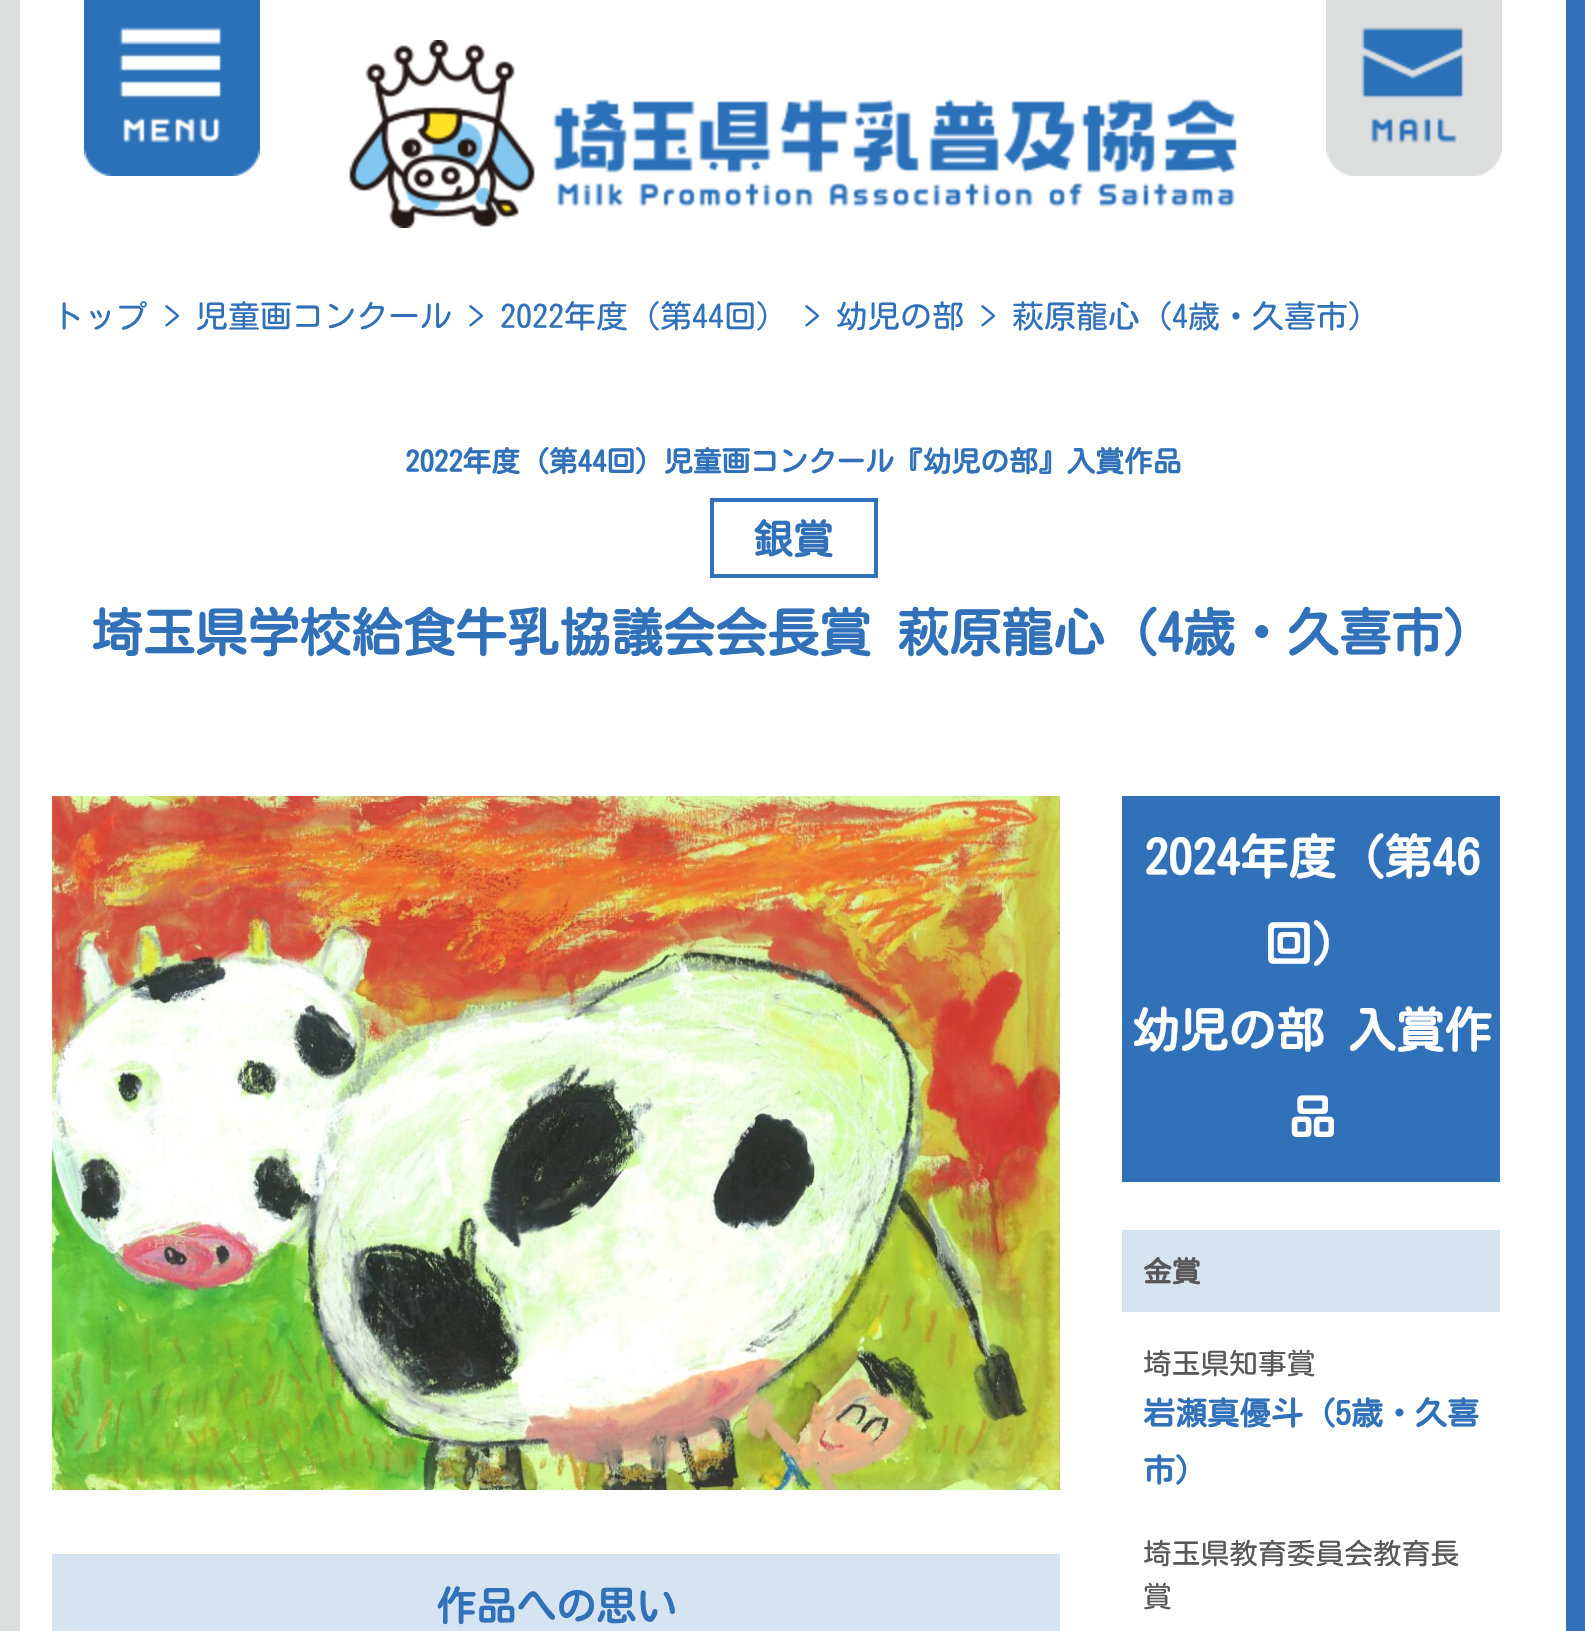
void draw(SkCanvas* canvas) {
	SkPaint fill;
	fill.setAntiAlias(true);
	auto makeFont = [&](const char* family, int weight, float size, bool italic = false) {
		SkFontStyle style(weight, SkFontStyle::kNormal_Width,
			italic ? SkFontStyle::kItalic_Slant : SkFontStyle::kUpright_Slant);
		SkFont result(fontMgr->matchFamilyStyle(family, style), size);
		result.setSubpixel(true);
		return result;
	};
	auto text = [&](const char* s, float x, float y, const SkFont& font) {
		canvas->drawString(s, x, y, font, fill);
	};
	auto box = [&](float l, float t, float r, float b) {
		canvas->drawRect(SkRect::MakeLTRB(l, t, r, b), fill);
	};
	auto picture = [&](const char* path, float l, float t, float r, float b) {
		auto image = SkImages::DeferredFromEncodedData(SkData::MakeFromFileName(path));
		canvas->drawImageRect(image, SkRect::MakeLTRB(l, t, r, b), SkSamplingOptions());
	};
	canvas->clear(0xFFFFFFFF);
	fill.setColor(0xFFDCDDDD);
	box(0, 0, 20, 1631);
	picture("image0.png", 84, 0, 260, 176);
	picture("image1.png", 349, 40, 1237, 228);
	picture("image2.png", 1326, 0, 1502, 176);
	fill.setColor(0xFF3071B9);
	box(1566, 0, 1585, 1631);
	fill.setStyle(SkPaint::kStroke_Style);
	fill.setStrokeWidth(4);
	canvas->drawRect(SkRect::MakeLTRB(712, 500, 876, 576), fill);
	picture("image3.png", 52, 796, 1060, 1490);
	fill.setStyle(SkPaint::kFill_Style);
	fill.setColor(0xFFD6E3F1);
	box(52, 1554, 1060, 1631);
	fill.setColor(0xFF3071B9);
	box(1122, 796, 1500, 1182);
	fill.setColor(0xFFD6E3F1);
	box(1122, 1230, 1500, 1312);
	auto font1 = makeFont("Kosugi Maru", 400, 32);
	fill.setColor(0xFF3071B9);
	text("トップ > 児童画コンクール > 2022年度（第44回） > 幼児の部 > 萩原龍心（4歳・久喜市）", 52, 328, font1);
	auto font2 = makeFont("Kosugi Maru", 700, 28.75f);
	text("2022年度（第44回）", 405, 472, font2);
	text("児童画コンクール", 664, 472, font2);
	text("『幼児の部』入賞作品", 894, 472, font2);
	auto font3 = makeFont("Kosugi Maru", 700, 40);
	text("銀賞", 753, 554, font3);
	auto font4 = makeFont("Kosugi Maru", 700, 52);
	text("埼玉県学校給食牛乳協議会会長賞 萩原龍心（4歳・久喜市）", 91, 652, font4);
	text("作品への思い", 436, 1621, font3);
	auto font5 = makeFont("Kosugi Maru", 700, 48);
	fill.setColor(0xFFFFFFFF);
	text("2024年度（第46", 1144, 875, font5);
	text("回）", 1264, 962, font5);
	text("幼児の部 入賞作", 1132, 1048, font5);
	text("品", 1288, 1135, font5);
	fill.setColor(0xFF595757);
	text("金賞", 1143, 1282, font2);
	auto font6 = makeFont("Kosugi Maru", 400, 28.75f);
	text("埼玉県知事賞", 1143, 1374, font6);
	auto font7 = makeFont("Kosugi Maru", 700, 32);
	fill.setColor(0xFF3071B9);
	text("岩瀬真優斗（5歳・久喜", 1143, 1425, font7);
	text("市）", 1143, 1482, font7);
	fill.setColor(0xFF595757);
	text("埼玉県教育委員会教育長", 1143, 1564, font6);
	text("賞", 1143, 1607, font6);
}
